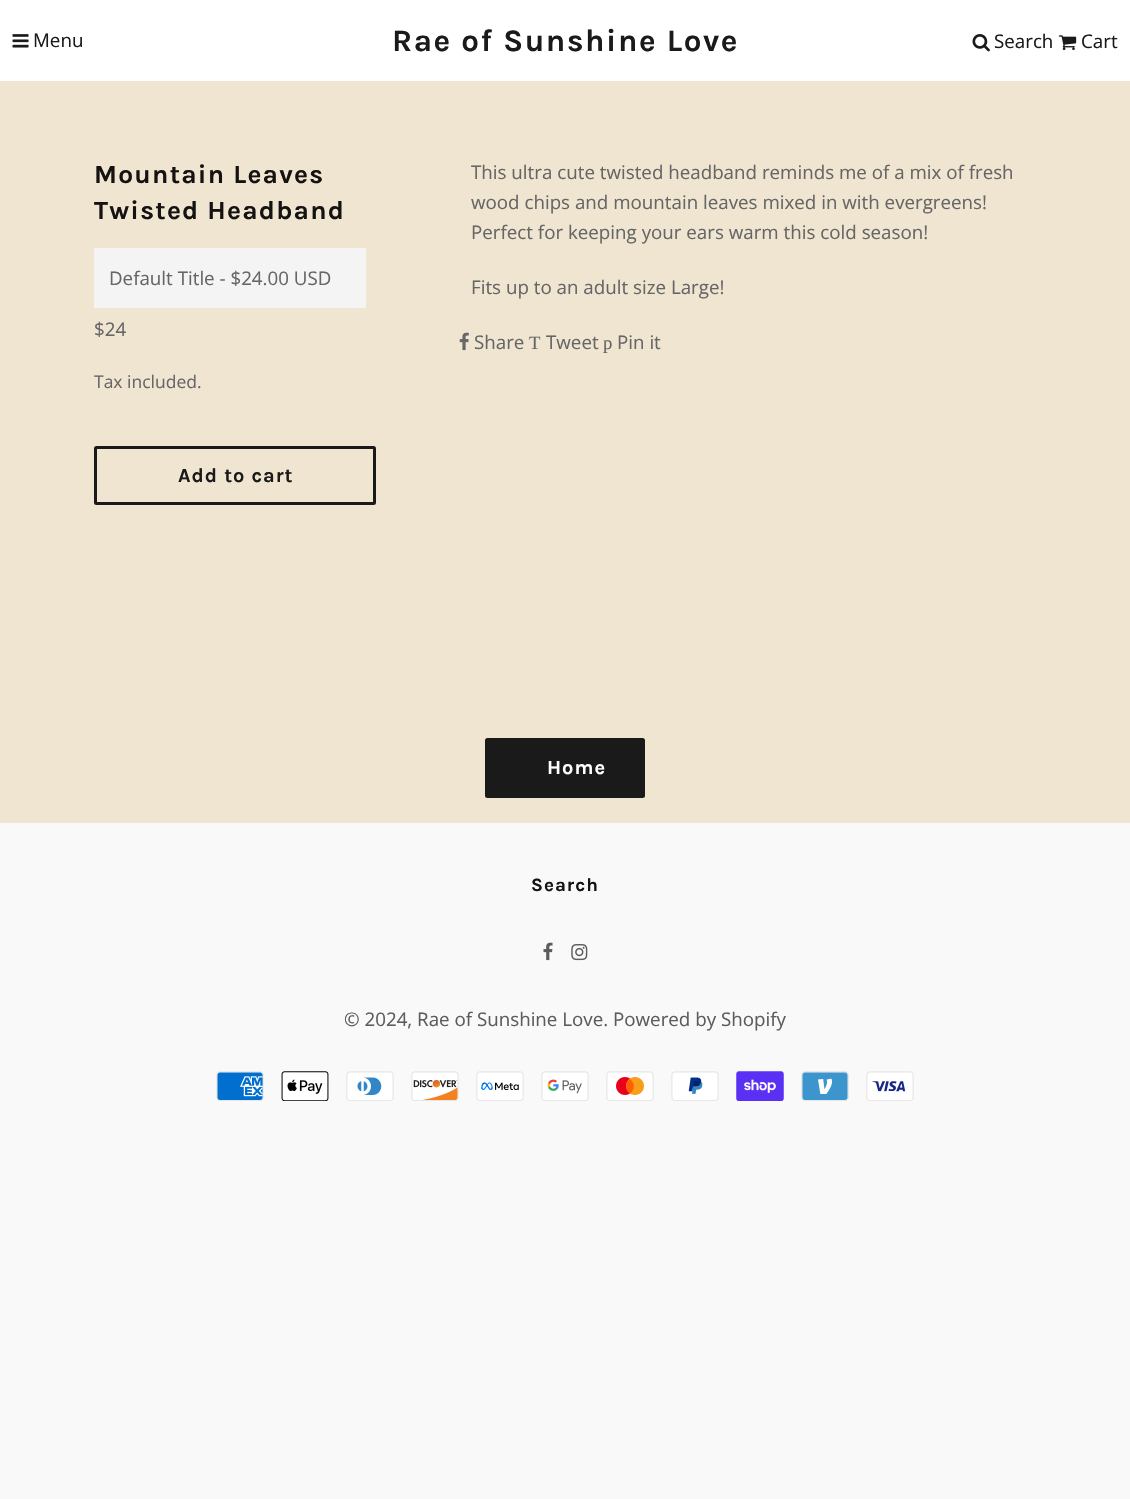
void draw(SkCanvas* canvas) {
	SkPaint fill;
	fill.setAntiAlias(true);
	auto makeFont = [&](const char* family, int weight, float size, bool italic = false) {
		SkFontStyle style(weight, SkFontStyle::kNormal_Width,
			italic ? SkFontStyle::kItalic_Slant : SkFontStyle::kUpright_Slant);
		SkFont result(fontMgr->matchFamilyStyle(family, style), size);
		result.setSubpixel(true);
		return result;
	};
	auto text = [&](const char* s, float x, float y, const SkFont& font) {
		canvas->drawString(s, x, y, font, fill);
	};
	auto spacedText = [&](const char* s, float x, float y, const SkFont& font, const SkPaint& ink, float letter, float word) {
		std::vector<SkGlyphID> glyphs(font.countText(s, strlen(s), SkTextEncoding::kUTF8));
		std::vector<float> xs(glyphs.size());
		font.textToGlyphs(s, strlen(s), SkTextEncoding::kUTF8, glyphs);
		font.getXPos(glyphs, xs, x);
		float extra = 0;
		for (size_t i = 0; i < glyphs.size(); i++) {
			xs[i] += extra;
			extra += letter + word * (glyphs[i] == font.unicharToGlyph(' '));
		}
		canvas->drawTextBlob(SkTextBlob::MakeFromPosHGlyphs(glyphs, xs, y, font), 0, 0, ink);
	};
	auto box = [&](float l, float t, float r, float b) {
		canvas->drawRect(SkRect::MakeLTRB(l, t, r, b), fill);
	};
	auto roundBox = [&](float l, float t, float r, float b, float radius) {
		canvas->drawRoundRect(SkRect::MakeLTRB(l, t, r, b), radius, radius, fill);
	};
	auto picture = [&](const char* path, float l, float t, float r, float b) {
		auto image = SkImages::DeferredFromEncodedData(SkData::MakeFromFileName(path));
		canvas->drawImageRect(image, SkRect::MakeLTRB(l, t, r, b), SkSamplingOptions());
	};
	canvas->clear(0xFFF9F9F9);
	fill.setColor(0xFFEFE5D0);
	box(0, 81, 1130, 823);
	fill.setColor(0xFFFFFFFF);
	box(0, 0, 1130, 81);
	picture("image0.png", 12, 34, 29, 48);
	picture("image1.png", 972, 34, 990, 52);
	picture("image2.png", 1058, 35, 1077, 51);
	fill.setColor(0xFFF4F4F4);
	box(94, 248, 366, 308);
	fill.setStyle(SkPaint::kStroke_Style);
	fill.setStrokeWidth(3);
	fill.setColor(0xFF1A1A1A);
	canvas->drawRoundRect(SkRect::MakeLTRB(95.5f, 447.5f, 374.5f, 503.5f), 1, 1, fill);
	picture("image3.png", 459, 332, 469, 351);
	fill.setStyle(SkPaint::kFill_Style);
	roundBox(485, 738, 645, 798, 2.5f);
	picture("image4.png", 543, 942, 553, 961);
	picture("image5.png", 571, 944, 588, 961);
	picture("image6.png", 216, 1071, 264, 1101);
	picture("image7.png", 281, 1071, 329, 1101);
	picture("image8.png", 346, 1071, 394, 1101);
	picture("image9.png", 411, 1071, 459, 1101);
	picture("image10.png", 476, 1071, 524, 1101);
	picture("image11.png", 541, 1071, 589, 1101);
	picture("image12.png", 606, 1071, 654, 1101);
	picture("image13.png", 671, 1071, 719, 1101);
	picture("image14.png", 736, 1071, 784, 1101);
	picture("image15.png", 801, 1071, 849, 1101);
	picture("image16.png", 866, 1071, 914, 1101);
	auto font1 = makeFont("Open Sans", 400, 18.75f);
	text("Menu", 33, 47, font1);
	auto font2 = makeFont("Karla", 700, 31.25f);
	spacedText("Rae of Sunshine Love", 392, 51, font2, fill, 1.6f, 0);
	text("Search", 994, 48, font1);
	text("Cart", 1081, 48, font1);
	auto font3 = makeFont("Karla", 700, 26.25f);
	fill.setColor(0xFF151212);
	spacedText("Mountain Leaves", 94, 183, font3, fill, 1.25f, 0);
	spacedText("Twisted Headband", 94, 219, font3, fill, 1.25f, 0);
	fill.setColor(0xFF666666);
	text("Default Title - $24.00 USD", 109, 285, font1);
	text("$24", 94, 336, font1);
	auto font4 = makeFont("Open Sans", 400, 17.5f);
	text("Tax included.", 94, 388, font4);
	auto font5 = makeFont("Karla", 700, 20);
	fill.setColor(0xFF1A1A1A);
	spacedText("Add to cart", 178, 482, font5, fill, 1, 0);
	fill.setColor(0xFF666666);
	text("This ultra cute twisted headband reminds me of a mix of fresh", 471, 179, font1);
	text("wood chips and mountain leaves mixed in with evergreens!", 471, 209, font1);
	text("Perfect for keeping your ears warm this cold season!", 471, 239, font1);
	text("Fits up to an adult size Large!", 471, 294, font1);
	text("Share", 474, 349, font1);
	auto font6 = makeFont("Liberation Serif", 400, 18.75f);
	text("T", 529, 349, font6);
	text("Tweet", 546, 349, font1);
	text("p", 603, 349, font6);
	text("Pin it", 617, 349, font1);
	fill.setColor(0xFFFFFFFF);
	spacedText("Home", 547, 774, font5, fill, 1, 0);
	auto font7 = makeFont("Karla", 700, 18.75f);
	fill.setColor(0xFF151212);
	spacedText("Search", 531, 891, font7, fill, 1, 0);
	fill.setColor(0xFF5C5C5C);
	text("© 2024, Rae of Sunshine Love. Powered by Shopify", 344, 1026, font1);
}
